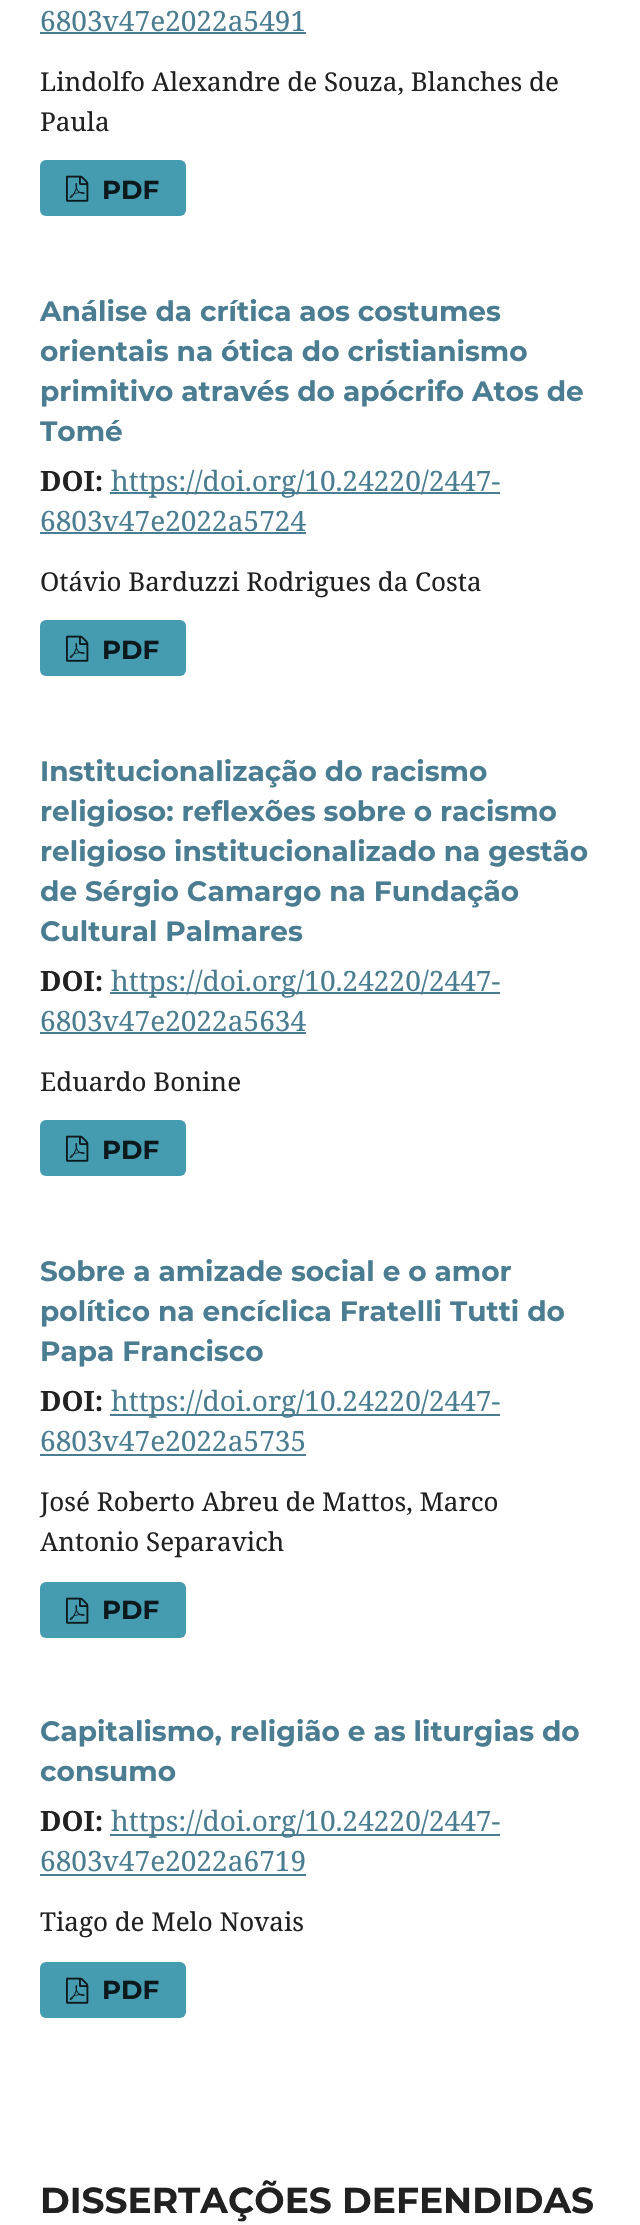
void draw(SkCanvas* canvas) {
	SkPaint fill;
	fill.setAntiAlias(true);
	auto makeFont = [&](const char* family, int weight, float size, bool italic = false) {
		SkFontStyle style(weight, SkFontStyle::kNormal_Width,
			italic ? SkFontStyle::kItalic_Slant : SkFontStyle::kUpright_Slant);
		SkFont result(fontMgr->matchFamilyStyle(family, style), size);
		result.setSubpixel(true);
		return result;
	};
	auto text = [&](const char* s, float x, float y, const SkFont& font) {
		canvas->drawString(s, x, y, font, fill);
	};
	auto box = [&](float l, float t, float r, float b) {
		canvas->drawRect(SkRect::MakeLTRB(l, t, r, b), fill);
	};
	auto roundBox = [&](float l, float t, float r, float b, float radius) {
		canvas->drawRoundRect(SkRect::MakeLTRB(l, t, r, b), radius, radius, fill);
	};
	auto picture = [&](const char* path, float l, float t, float r, float b) {
		auto image = SkImages::DeferredFromEncodedData(SkData::MakeFromFileName(path));
		canvas->drawImageRect(image, SkRect::MakeLTRB(l, t, r, b), SkSamplingOptions());
	};
	canvas->clear(0xFFFFFFFF);
	fill.setColor(0xFF4B7D92);
	box(40, 32, 306, 34);
	fill.setColor(0xFF459BAF);
	roundBox(40, 160, 186, 216, 6);
	picture("image0.png", 66, 175, 89, 202);
	fill.setColor(0xFF4B7D92);
	box(110, 492, 500, 494);
	box(40, 532, 306, 534);
	fill.setColor(0xFF459BAF);
	roundBox(40, 620, 186, 676, 6);
	picture("image0.png", 66, 635, 89, 662);
	fill.setColor(0xFF4B7D92);
	box(110, 992, 500, 994);
	box(40, 1032, 306, 1034);
	fill.setColor(0xFF459BAF);
	roundBox(40, 1120, 186, 1176, 6);
	picture("image0.png", 66, 1135, 89, 1162);
	fill.setColor(0xFF4B7D92);
	box(110, 1414, 500, 1416);
	box(40, 1454, 306, 1456);
	fill.setColor(0xFF459BAF);
	roundBox(40, 1582, 186, 1638, 6);
	picture("image0.png", 66, 1597, 89, 1624);
	fill.setColor(0xFF4B7D92);
	box(110, 1834, 500, 1836);
	box(40, 1874, 306, 1876);
	fill.setColor(0xFF459BAF);
	roundBox(40, 1962, 186, 2018, 6);
	picture("image0.png", 66, 1977, 89, 2004);
	auto font1 = makeFont("Noto Serif", 400, 28);
	fill.setColor(0xFF4B7D92);
	text("6803v47e2022a5491", 40, 31, font1);
	auto font2 = makeFont("Noto Serif", 400, 26);
	fill.setColor(0xFF212121);
	text("Lindolfo Alexandre de Souza, Blanches de", 40, 91, font2);
	text("Paula", 40, 131, font2);
	auto font3 = makeFont("Montserrat", 700, 26);
	fill.setColor(0xFF0B191C);
	text("PDF", 102, 199, font3);
	auto font4 = makeFont("Montserrat", 700, 28);
	fill.setColor(0xFF4B7D92);
	text("Análise da crítica aos costumes", 40, 321, font4);
	text("orientais na ótica do cristianismo", 40, 361, font4);
	text("primitivo através do apócrifo Atos de", 40, 401, font4);
	text("Tomé", 40, 441, font4);
	auto font5 = makeFont("Noto Serif", 700, 28);
	fill.setColor(0xFF212121);
	text("DOI:", 40, 491, font5);
	fill.setColor(0xFF4B7D92);
	text("https://doi.org/10.24220/2447-", 111, 491, font1);
	text("6803v47e2022a5724", 40, 531, font1);
	fill.setColor(0xFF212121);
	text("Otávio Barduzzi Rodrigues da Costa", 40, 591, font2);
	fill.setColor(0xFF0B191C);
	text("PDF", 102, 659, font3);
	fill.setColor(0xFF4B7D92);
	text("Institucionalização do racismo", 40, 781, font4);
	text("religioso: reflexões sobre o racismo", 40, 821, font4);
	text("religioso institucionalizado na gestão", 40, 861, font4);
	text("de Sérgio Camargo na Fundação", 40, 901, font4);
	text("Cultural Palmares", 40, 941, font4);
	fill.setColor(0xFF212121);
	text("DOI:", 40, 991, font5);
	fill.setColor(0xFF4B7D92);
	text("https://doi.org/10.24220/2447-", 111, 991, font1);
	text("6803v47e2022a5634", 40, 1031, font1);
	fill.setColor(0xFF212121);
	text("Eduardo Bonine", 40, 1091, font2);
	fill.setColor(0xFF0B191C);
	text("PDF", 102, 1159, font3);
	fill.setColor(0xFF4B7D92);
	text("Sobre a amizade social e o amor", 40, 1281, font4);
	text("político na encíclica Fratelli Tutti do", 40, 1321, font4);
	text("Papa Francisco", 40, 1361, font4);
	fill.setColor(0xFF212121);
	text("DOI:", 40, 1411, font5);
	fill.setColor(0xFF4B7D92);
	text("https://doi.org/10.24220/2447-", 111, 1411, font1);
	text("6803v47e2022a5735", 40, 1451, font1);
	fill.setColor(0xFF212121);
	text("José Roberto Abreu de Mattos, Marco", 40, 1511, font2);
	text("Antonio Separavich", 40, 1551, font2);
	fill.setColor(0xFF0B191C);
	text("PDF", 102, 1619, font3);
	fill.setColor(0xFF4B7D92);
	text("Capitalismo, religião e as liturgias do", 40, 1741, font4);
	text("consumo", 40, 1781, font4);
	fill.setColor(0xFF212121);
	text("DOI:", 40, 1831, font5);
	fill.setColor(0xFF4B7D92);
	text("https://doi.org/10.24220/2447-", 111, 1831, font1);
	text("6803v47e2022a6719", 40, 1871, font1);
	fill.setColor(0xFF212121);
	text("Tiago de Melo Novais", 40, 1931, font2);
	fill.setColor(0xFF0B191C);
	text("PDF", 102, 1999, font3);
	auto font6 = makeFont("Montserrat", 700, 36);
	fill.setColor(0xFF212121);
	text("DISSERTAÇÕES DEFENDIDAS", 40, 2213, font6);
}
